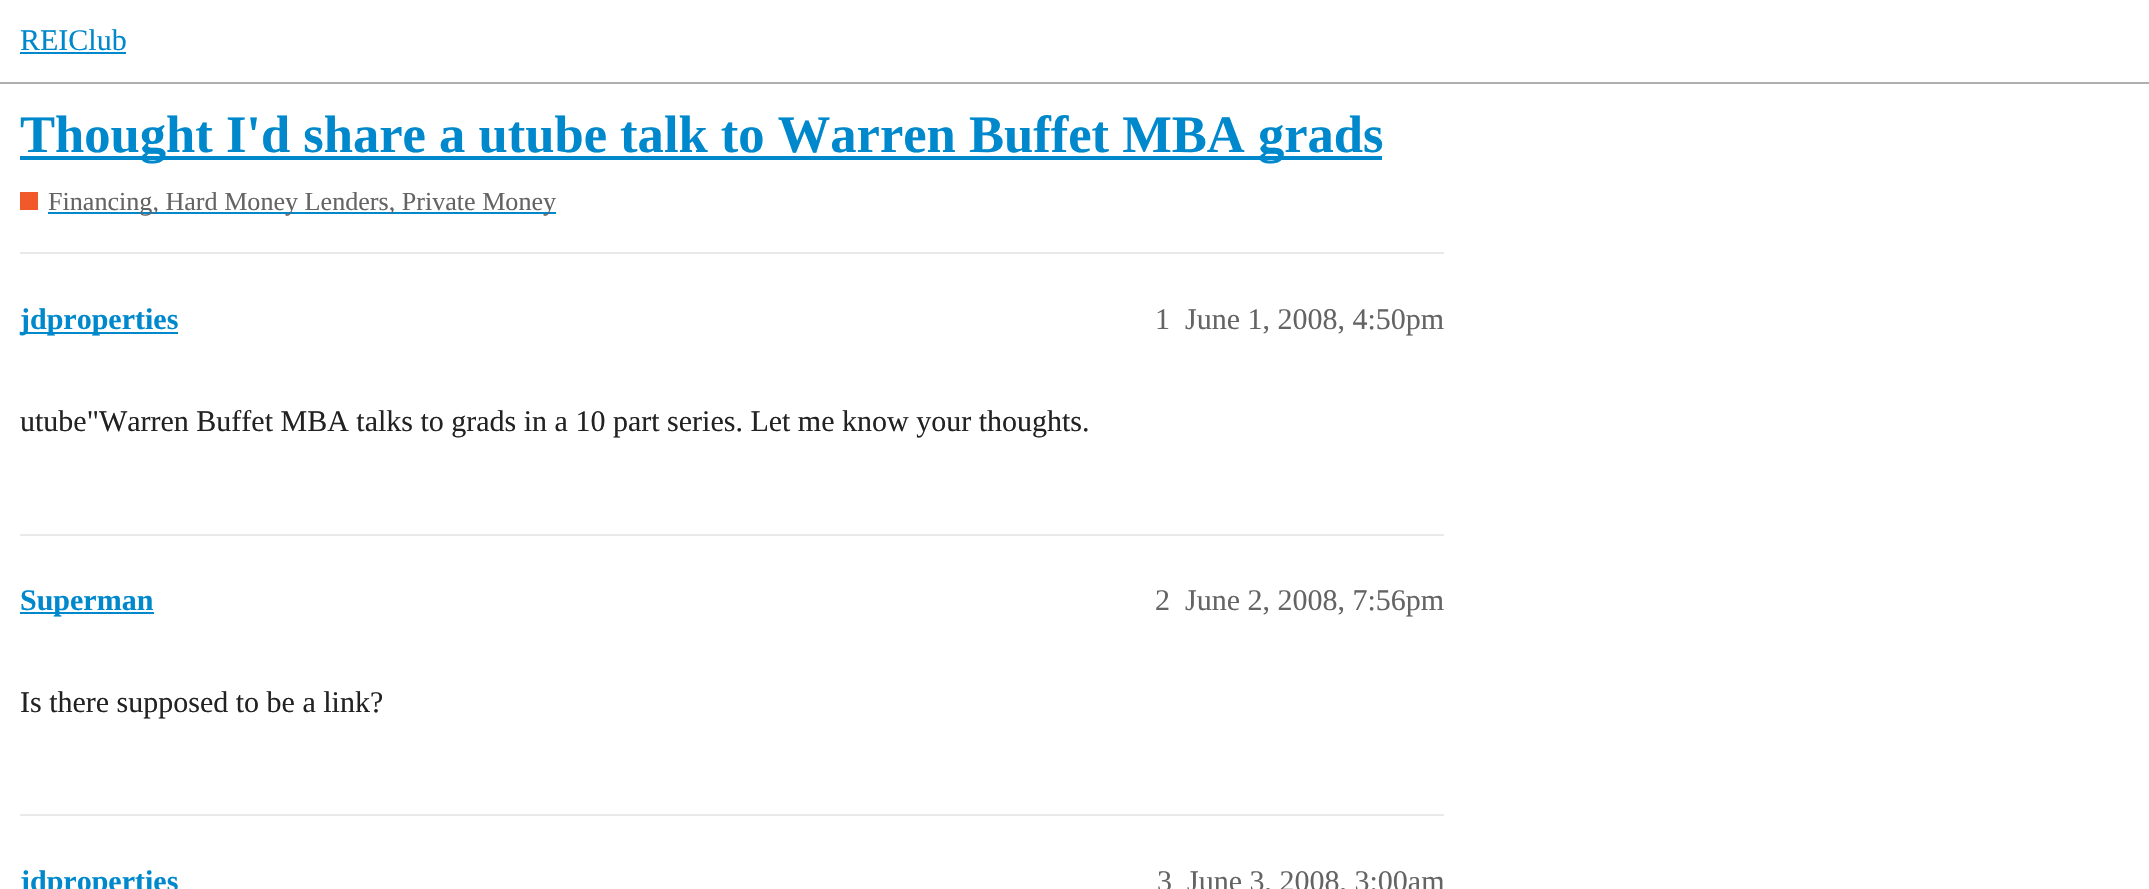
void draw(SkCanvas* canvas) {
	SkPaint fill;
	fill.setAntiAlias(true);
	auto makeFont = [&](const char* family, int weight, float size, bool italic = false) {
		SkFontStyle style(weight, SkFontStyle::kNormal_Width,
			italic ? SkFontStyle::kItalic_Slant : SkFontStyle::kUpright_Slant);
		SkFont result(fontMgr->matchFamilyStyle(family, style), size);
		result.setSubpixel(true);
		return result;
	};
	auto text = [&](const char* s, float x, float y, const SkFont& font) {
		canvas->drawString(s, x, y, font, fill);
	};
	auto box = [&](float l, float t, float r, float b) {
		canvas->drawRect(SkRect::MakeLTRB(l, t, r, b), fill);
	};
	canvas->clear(0xFFFFFFFF);
	fill.setColor(0xFFAFAFAF);
	box(0, 82, 2149, 84);
	fill.setColor(0xFF0088CC);
	box(20, 52, 126, 54);
	box(20, 156, 1382, 160);
	fill.setColor(0xFFF1592A);
	box(20, 192, 38, 210);
	fill.setColor(0xFF0088CC);
	box(48, 212, 556, 214);
	fill.setColor(0xFFE9E9E9);
	box(20, 252, 1444, 254);
	fill.setColor(0xFF0088CC);
	box(20, 332, 178, 334);
	fill.setColor(0xFFE9E9E9);
	box(20, 534, 1444, 536);
	fill.setColor(0xFF0088CC);
	box(20, 612, 154, 614);
	fill.setColor(0xFFE9E9E9);
	box(20, 814, 1444, 816);
	auto font1 = makeFont("Liberation Serif", 400, 30);
	fill.setColor(0xFF0088CC);
	text("REIClub", 20, 50, font1);
	auto font2 = makeFont("Liberation Serif", 700, 52.55f);
	text("Thought I'd share a utube talk to Warren Buffet MBA grads", 20, 152, font2);
	auto font3 = makeFont("Liberation Serif", 400, 26.1f);
	fill.setColor(0xFF646464);
	text("Financing, Hard Money Lenders, Private Money", 48, 210, font3);
	auto font4 = makeFont("Liberation Serif", 700, 30);
	fill.setColor(0xFF0088CC);
	text("jdproperties", 20, 329, font4);
	fill.setColor(0xFF646464);
	text("1", 1155, 329, font1);
	text("June 1, 2008, 4:50pm", 1185, 329, font1);
	fill.setColor(0xFF222222);
	text("utube\"Warren Buffet MBA talks to grads in a 10 part series. Let me know your thoughts.", 20, 431, font1);
	fill.setColor(0xFF0088CC);
	text("Superman", 20, 610, font4);
	fill.setColor(0xFF646464);
	text("2", 1155, 610, font1);
	text("June 2, 2008, 7:56pm", 1185, 610, font1);
	fill.setColor(0xFF222222);
	text("Is there supposed to be a link?", 20, 712, font1);
	fill.setColor(0xFF0088CC);
	text("jdproperties", 20, 891, font4);
	fill.setColor(0xFF646464);
	text("3", 1157, 891, font1);
	text("June 3, 2008, 3:00am", 1187, 891, font1);
}
